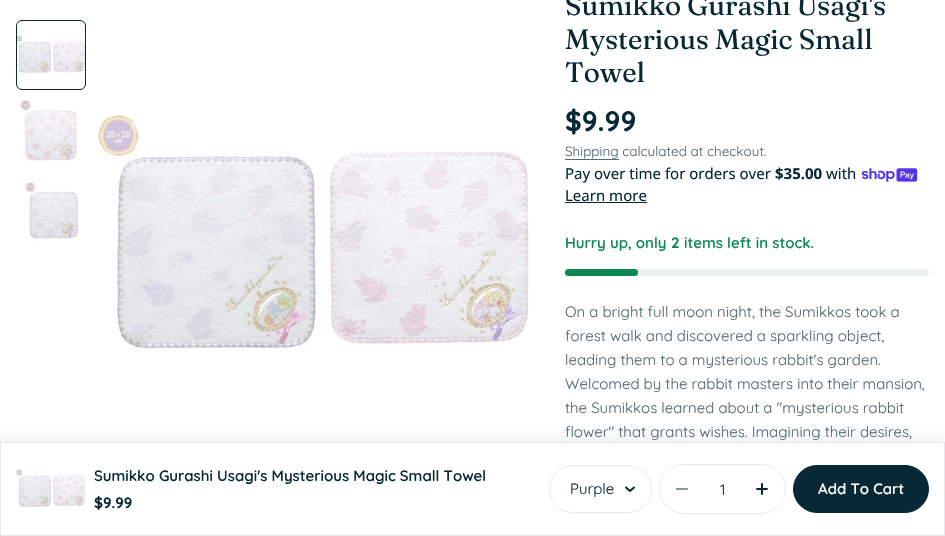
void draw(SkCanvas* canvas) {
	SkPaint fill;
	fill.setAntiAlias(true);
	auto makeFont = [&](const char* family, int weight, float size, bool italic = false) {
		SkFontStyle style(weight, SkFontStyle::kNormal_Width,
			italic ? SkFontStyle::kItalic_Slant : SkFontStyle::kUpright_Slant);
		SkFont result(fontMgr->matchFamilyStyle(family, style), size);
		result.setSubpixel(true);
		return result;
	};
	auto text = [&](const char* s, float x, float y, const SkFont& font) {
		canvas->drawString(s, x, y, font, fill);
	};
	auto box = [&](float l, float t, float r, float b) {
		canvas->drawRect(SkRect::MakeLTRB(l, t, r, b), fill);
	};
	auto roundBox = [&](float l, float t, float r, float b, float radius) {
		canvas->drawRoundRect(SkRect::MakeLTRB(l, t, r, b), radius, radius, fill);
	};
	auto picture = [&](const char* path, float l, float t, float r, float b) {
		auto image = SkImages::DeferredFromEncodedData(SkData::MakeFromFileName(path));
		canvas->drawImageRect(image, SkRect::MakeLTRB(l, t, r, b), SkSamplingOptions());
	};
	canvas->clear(0xFFFFFFFF);
	picture("image0.png", 17, 33, 85, 76);
	fill.setStyle(SkPaint::kStroke_Style);
	fill.setStrokeWidth(1);
	fill.setColor(0xFF072835);
	canvas->drawRoundRect(SkRect::MakeLTRB(16.5f, 20.5f, 85.5f, 89.5f), 5.5f, 5.5f, fill);
	picture("image1.png", 20, 98, 77, 162);
	picture("image2.png", 25, 176, 80, 241);
	picture("image3.png", 98, 115, 529, 354);
	fill.setStyle(SkPaint::kFill_Style);
	fill.setColor(0xFF516971);
	box(565, 159, 619, 160);
	picture("image4.png", 861, 168, 918, 182);
	fill.setColor(0xFF072835);
	box(565, 202, 647, 203);
	fill.setColor(0xFFECEFF0);
	roundBox(565, 269, 929, 276, 3.5f);
	fill.setColor(0xFF0D8756);
	roundBox(565, 269, 638, 276, 3.5f);
	fill.setColor(0x0D000000);
	fill.setMaskFilter(SkMaskFilter::MakeBlur(kNormal_SkBlurStyle, 5));
	canvas->drawRect(SkRect::MakeLTRB(0, 436, 945, 530), fill);
	fill.setMaskFilter(nullptr);
	fill.setColor(0xFFFFFFFF);
	box(1, 443, 944, 534);
	fill.setStyle(SkPaint::kStroke_Style);
	fill.setColor(0xFFE6E9EB);
	canvas->drawRect(SkRect::MakeLTRB(0.5f, 442.5f, 944.5f, 535.5f), fill);
	picture("image5.png", 16, 467, 86, 510);
	canvas->drawRoundRect(SkRect::MakeLTRB(549.5f, 465.5f, 651.5f, 512.5f), 23.5f, 23.5f, fill);
	fill.setStrokeWidth(2);
	fill.setStrokeCap(SkPaint::kRound_Cap);
	fill.setStrokeJoin(SkPaint::kRound_Join);
	fill.setColor(0xFF072835);
	canvas->drawPath(SkPathBuilder().moveTo(634, 487.5f).lineTo(630, 491).lineTo(626, 487.5f).detach(), fill);
	fill.setStrokeWidth(1);
	fill.setStrokeCap(SkPaint::kButt_Cap);
	fill.setStrokeJoin(SkPaint::kMiter_Join);
	fill.setColor(0xFFE6E9EB);
	canvas->drawRoundRect(SkRect::MakeLTRB(659.5f, 464.5f, 785.5f, 513.5f), 24.5f, 24.5f, fill);
	fill.setStrokeWidth(2);
	fill.setStrokeCap(SkPaint::kRound_Cap);
	fill.setStrokeJoin(SkPaint::kRound_Join);
	fill.setColor(0xFF83949A);
	canvas->drawPath(SkPathBuilder().moveTo(677, 489).lineTo(687, 489).detach(), fill);
	fill.setColor(0xFF072835);
	canvas->drawPath(SkPathBuilder().moveTo(757, 489).lineTo(767, 489).moveTo(762, 484).lineTo(762, 494).detach(), fill);
	fill.setStyle(SkPaint::kFill_Style);
	canvas->drawRoundRect(SkRect::MakeLTRB(793.5f, 465.5f, 928.5f, 512.5f), 23.5f, 23.5f, fill);
	fill.setStyle(SkPaint::kStroke_Style);
	fill.setStrokeWidth(1);
	fill.setStrokeCap(SkPaint::kButt_Cap);
	fill.setStrokeJoin(SkPaint::kMiter_Join);
	canvas->drawRoundRect(SkRect::MakeLTRB(793.5f, 465.5f, 928.5f, 512.5f), 23.5f, 23.5f, fill);
	auto font1 = makeFont("Fraunces", 400, 28);
	fill.setStyle(SkPaint::kFill_Style);
	text("Sumikko Gurashi Usagi's", 565, 15, font1);
	text("Mysterious Magic Small", 565, 49, font1);
	text("Towel", 565, 82, font1);
	auto font2 = makeFont("Quicksand", 700, 28);
	text("$9.99", 565, 131, font2);
	auto font3 = makeFont("Quicksand", 400, 13.5f);
	fill.setColor(0xFF516971);
	text("Shipping calculated at checkout.", 565, 156, font3);
	auto font4 = makeFont("Noto Sans", 400, 15);
	fill.setColor(0xFF072835);
	text("Pay over time for orders over", 565, 179, font4);
	auto font5 = makeFont("Noto Sans", 700, 15);
	text("$35.00", 775, 179, font5);
	text("with", 826, 179, font4);
	text("Learn more", 565, 201, font4);
	auto font6 = makeFont("Quicksand", 600, 15);
	fill.setColor(0xFF0D8756);
	text("Hurry up, only", 565, 248, font6);
	auto font7 = makeFont("Quicksand", 700, 15);
	text("2", 671, 248, font7);
	text("items left in stock.", 684, 248, font6);
	auto font8 = makeFont("Quicksand", 400, 15);
	fill.setColor(0xFF516971);
	text("On a bright full moon night, the Sumikkos took a", 565, 317, font8);
	text("forest walk and discovered a sparkling object,", 565, 341, font8);
	text("leading them to a mysterious rabbit's garden.", 565, 365, font8);
	text("Welcomed by the rabbit masters into their mansion,", 565, 389, font8);
	text("the Sumikkos learned about a \"mysterious rabbit", 565, 413, font8);
	text("flower\" that grants wishes. Imagining their desires,", 565, 437, font8);
	fill.setColor(0xFF072835);
	text("Sumikko Gurashi Usagi's Mysterious Magic Small Towel", 94, 481, font6);
	text("$9.99", 94, 508, font7);
	text("Purple", 570, 494, font8);
	text("1", 720, 495, font8);
	fill.setColor(0xFFFFFFFF);
	text("Add To Cart", 818, 494, font6);
}
